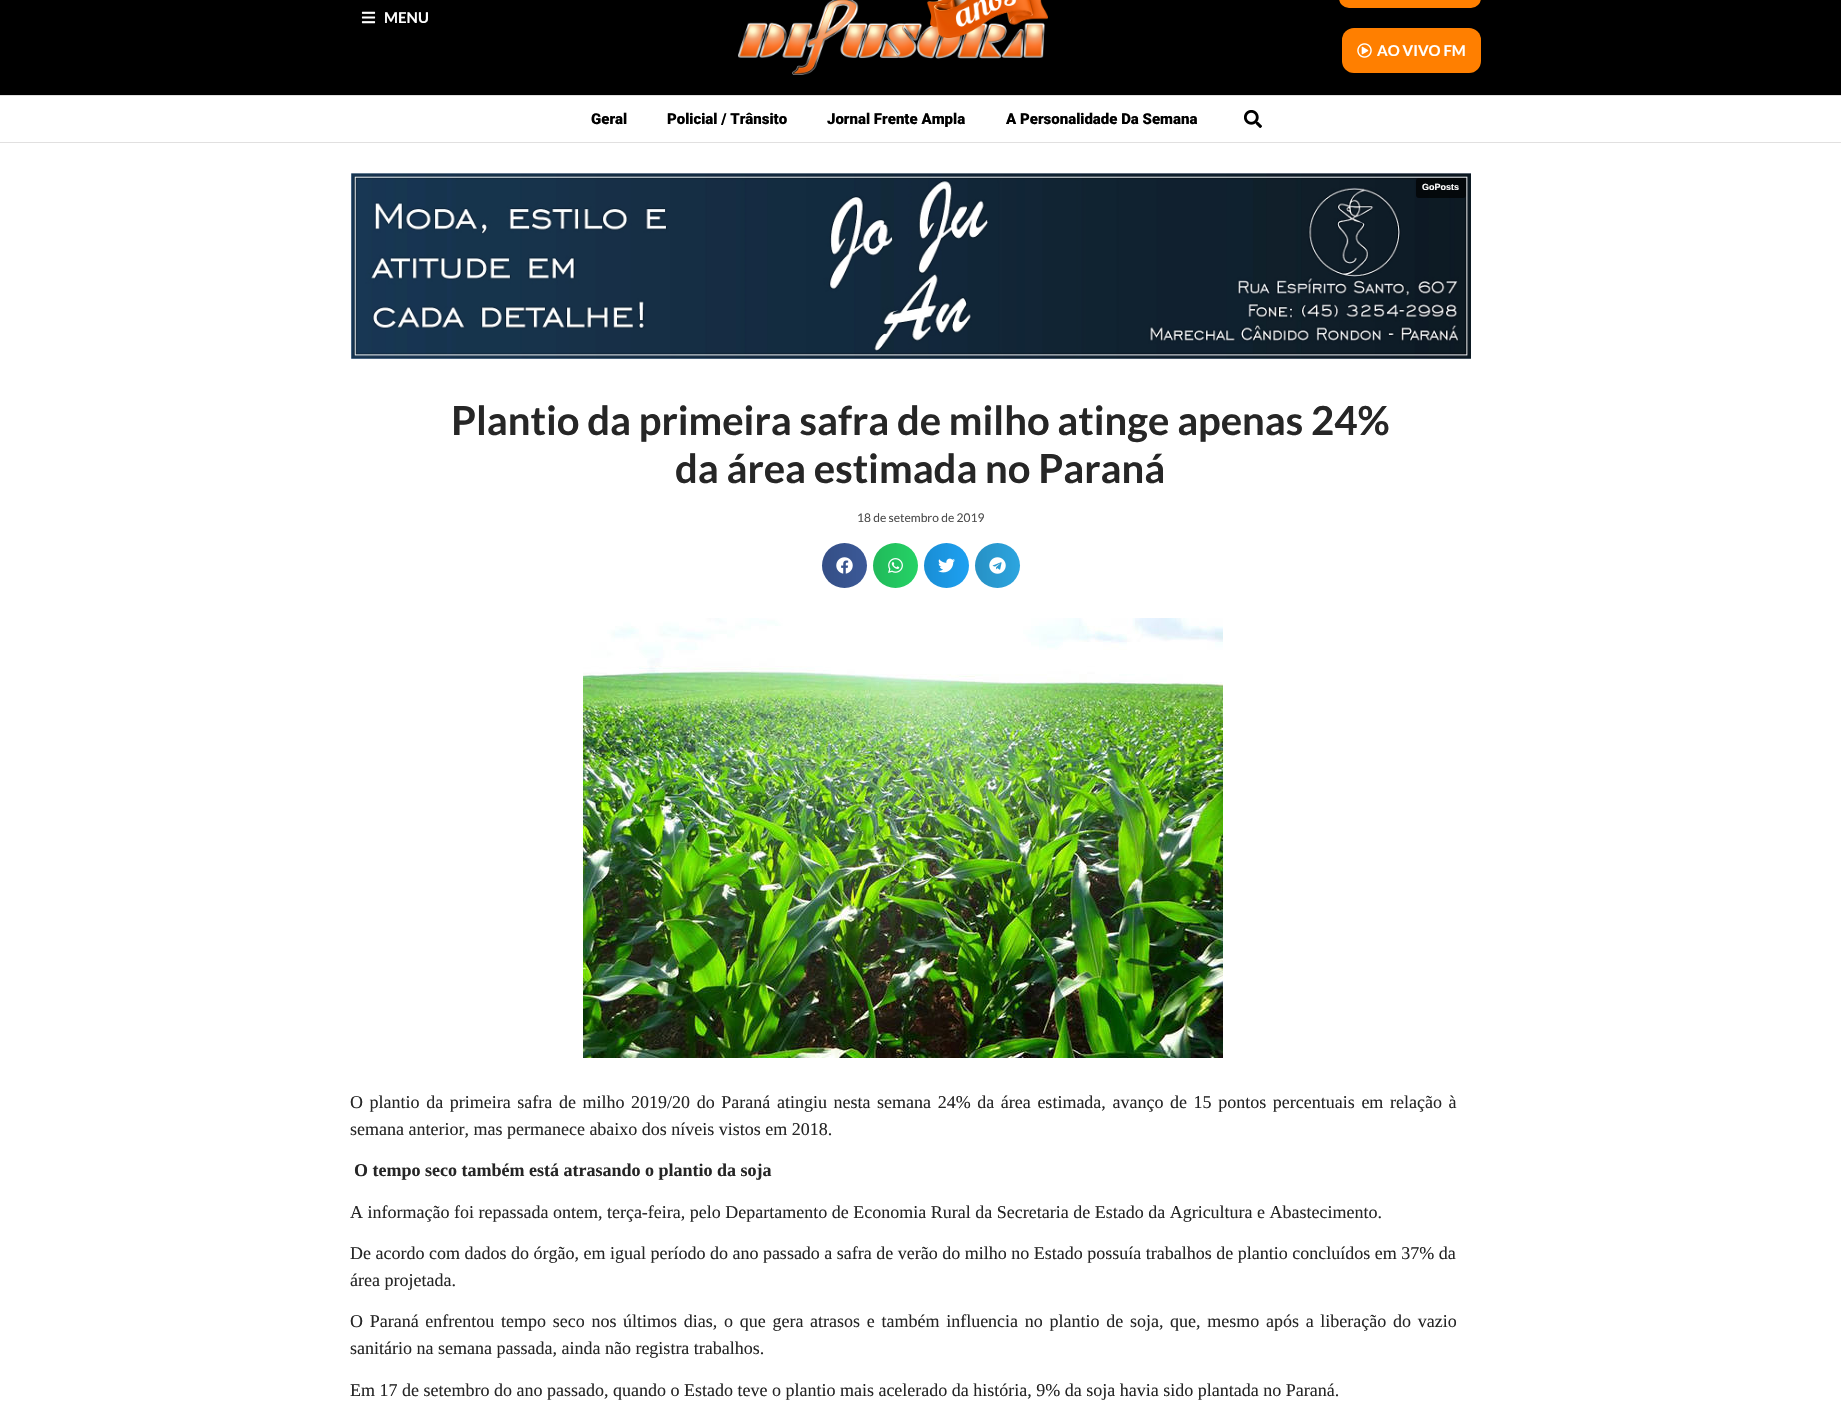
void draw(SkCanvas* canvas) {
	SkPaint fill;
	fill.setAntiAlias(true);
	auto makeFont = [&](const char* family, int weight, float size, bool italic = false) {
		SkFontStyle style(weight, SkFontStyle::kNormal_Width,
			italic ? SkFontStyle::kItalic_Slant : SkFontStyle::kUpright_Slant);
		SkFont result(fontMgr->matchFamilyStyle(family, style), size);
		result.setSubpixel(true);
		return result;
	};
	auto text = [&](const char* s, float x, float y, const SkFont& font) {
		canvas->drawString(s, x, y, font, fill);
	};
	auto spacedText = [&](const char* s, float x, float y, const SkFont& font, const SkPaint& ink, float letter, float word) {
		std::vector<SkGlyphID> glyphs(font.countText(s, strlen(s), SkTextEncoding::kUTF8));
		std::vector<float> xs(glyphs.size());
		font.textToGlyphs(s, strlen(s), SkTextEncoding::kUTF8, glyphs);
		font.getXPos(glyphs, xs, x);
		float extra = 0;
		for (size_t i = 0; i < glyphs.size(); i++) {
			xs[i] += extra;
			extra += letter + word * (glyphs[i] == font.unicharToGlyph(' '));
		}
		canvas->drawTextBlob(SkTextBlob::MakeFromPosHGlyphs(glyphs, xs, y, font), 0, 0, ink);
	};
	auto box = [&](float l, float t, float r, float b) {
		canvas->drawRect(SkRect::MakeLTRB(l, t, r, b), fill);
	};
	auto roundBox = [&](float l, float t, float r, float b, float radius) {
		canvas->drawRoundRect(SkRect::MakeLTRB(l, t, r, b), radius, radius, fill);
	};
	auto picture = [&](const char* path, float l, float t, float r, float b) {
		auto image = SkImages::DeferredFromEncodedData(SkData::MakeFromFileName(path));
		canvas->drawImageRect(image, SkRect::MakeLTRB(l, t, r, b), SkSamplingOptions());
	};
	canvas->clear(0xFFFFFFFF);
	fill.setColor(0xFF000000);
	box(0, 0, 1841, 95);
	picture("image0.png", 361, 11, 376, 24);
	picture("image1.png", 738, 0, 1048, 75);
	fill.setColor(0xFFFF7F00);
	roundBox(1339, -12, 1481, 8, 12);
	roundBox(1342, 28, 1481, 73, 12);
	picture("image2.png", 1357, 43, 1372, 58);
	fill.setColor(0xFFE1E0E0);
	box(0, 95, 1841, 96);
	box(0, 142, 1841, 143);
	picture("image3.png", 1244, 110, 1262, 128);
	picture("image4.png", 351, 173, 1471, 359);
	fill.setColor(0xB3000000);
	roundBox(1416, 178, 1466, 198, 3);
	fill.setColor(0xFF3B5998);
	canvas->drawCircle(844.5f, 565.5f, 22.5f, fill);
	{
		const SkColor colors[] = {0x1F000000, 0x00000000};
		const float stops[] = {0, 1};
		const SkPoint ends[] = {{822, 566}, {867, 566}};
		fill.setShader(SkGradientShader::MakeLinear(ends, colors, stops, 2, SkTileMode::kClamp));
		fill.setAlpha(255);
	}
	canvas->drawCircle(844.5f, 565.5f, 22.5f, fill);
	picture("image5.png", 836, 557, 853, 574);
	fill.setShader(nullptr);
	fill.setColor(0xFF25D366);
	canvas->drawCircle(895.5f, 565.5f, 22.5f, fill);
	{
		const SkColor colors[] = {0x1F000000, 0x00000000};
		const float stops[] = {0, 1};
		const SkPoint ends[] = {{873, 566}, {918, 566}};
		fill.setShader(SkGradientShader::MakeLinear(ends, colors, stops, 2, SkTileMode::kClamp));
		fill.setAlpha(255);
	}
	canvas->drawCircle(895.5f, 565.5f, 22.5f, fill);
	picture("image6.png", 888, 558, 903, 573);
	fill.setShader(nullptr);
	fill.setColor(0xFF1DA1F2);
	canvas->drawCircle(946.5f, 565.5f, 22.5f, fill);
	{
		const SkColor colors[] = {0x1F000000, 0x00000000};
		const float stops[] = {0, 1};
		const SkPoint ends[] = {{924, 566}, {969, 566}};
		fill.setShader(SkGradientShader::MakeLinear(ends, colors, stops, 2, SkTileMode::kClamp));
		fill.setAlpha(255);
	}
	canvas->drawCircle(946.5f, 565.5f, 22.5f, fill);
	picture("image7.png", 938, 558, 955, 573);
	fill.setShader(nullptr);
	fill.setColor(0xFF2CA5E0);
	canvas->drawCircle(997.5f, 565.5f, 22.5f, fill);
	{
		const SkColor colors[] = {0x1F000000, 0x00000000};
		const float stops[] = {0, 1};
		const SkPoint ends[] = {{975, 566}, {1020, 566}};
		fill.setShader(SkGradientShader::MakeLinear(ends, colors, stops, 2, SkTileMode::kClamp));
		fill.setAlpha(255);
	}
	canvas->drawCircle(997.5f, 565.5f, 22.5f, fill);
	picture("image8.png", 989, 557, 1006, 574);
	picture("image9.png", 583, 618, 1223, 1058);
	auto font1 = makeFont("Lato", 700, 15);
	fill.setShader(nullptr);
	fill.setColor(0xFFFFFFFF);
	text("MENU", 384, 23, font1);
	text("AO VIVO FM", 1377, 56, font1);
	auto font2 = makeFont("Roboto", 900, 15);
	fill.setColor(0xFF000000);
	text("Geral", 591, 124, font2);
	text("Policial / Trânsito", 667, 124, font2);
	text("Jornal Frente Ampla", 827, 124, font2);
	text("A Personalidade Da Semana", 1006, 124, font2);
	auto font3 = makeFont("Liberation Sans", 700, 9);
	fill.setColor(0xFFFFFFFF);
	text("GoPosts", 1422, 190, font3);
	auto font4 = makeFont("Lato", 700, 40);
	fill.setColor(0xFF262626);
	text("Plantio da primeira safra de milho atinge apenas 24%", 451, 435, font4);
	text("da área estimada no Paraná", 675, 483, font4);
	auto font5 = makeFont("Lato", 400, 12);
	fill.setColor(0xFF4D4D4D);
	text("18 de setembro de 2019", 857, 522, font5);
	auto font6 = makeFont("Liberation Serif", 400, 18);
	fill.setColor(0xFF262626);
	spacedText("O plantio da primeira safra de milho 2019/20 do Paraná atingiu nesta semana 24% da área estimada, avanço de 15 pontos percentuais em relação à", 350, 1108, font6, fill, 0, 2.1f);
	text("semana anterior, mas permanece abaixo dos níveis vistos em 2018.", 350, 1135, font6);
	auto font7 = makeFont("Liberation Serif", 700, 18);
	text("O tempo seco também está atrasando o plantio da soja", 354, 1176, font7);
	text("A informação foi repassada ontem, terça-feira, pelo Departamento de Economia Rural da Secretaria de Estado da Agricultura e Abastecimento.", 350, 1218, font6);
	text("De acordo com dados do órgão, em igual período do ano passado a safra de verão do milho no Estado possuía trabalhos de plantio concluídos em 37% da", 350, 1259, font6);
	text("área projetada.", 350, 1286, font6);
	spacedText("O Paraná enfrentou tempo seco nos últimos dias, o que gera atrasos e também influencia no plantio de soja, que, mesmo após a liberação do vazio", 350, 1327, font6, fill, 0, 2.2f);
	text("sanitário na semana passada, ainda não registra trabalhos.", 350, 1354, font6);
	text("Em 17 de setembro do ano passado, quando o Estado teve o plantio mais acelerado da história, 9% da soja havia sido plantada no Paraná.", 350, 1396, font6);
}
